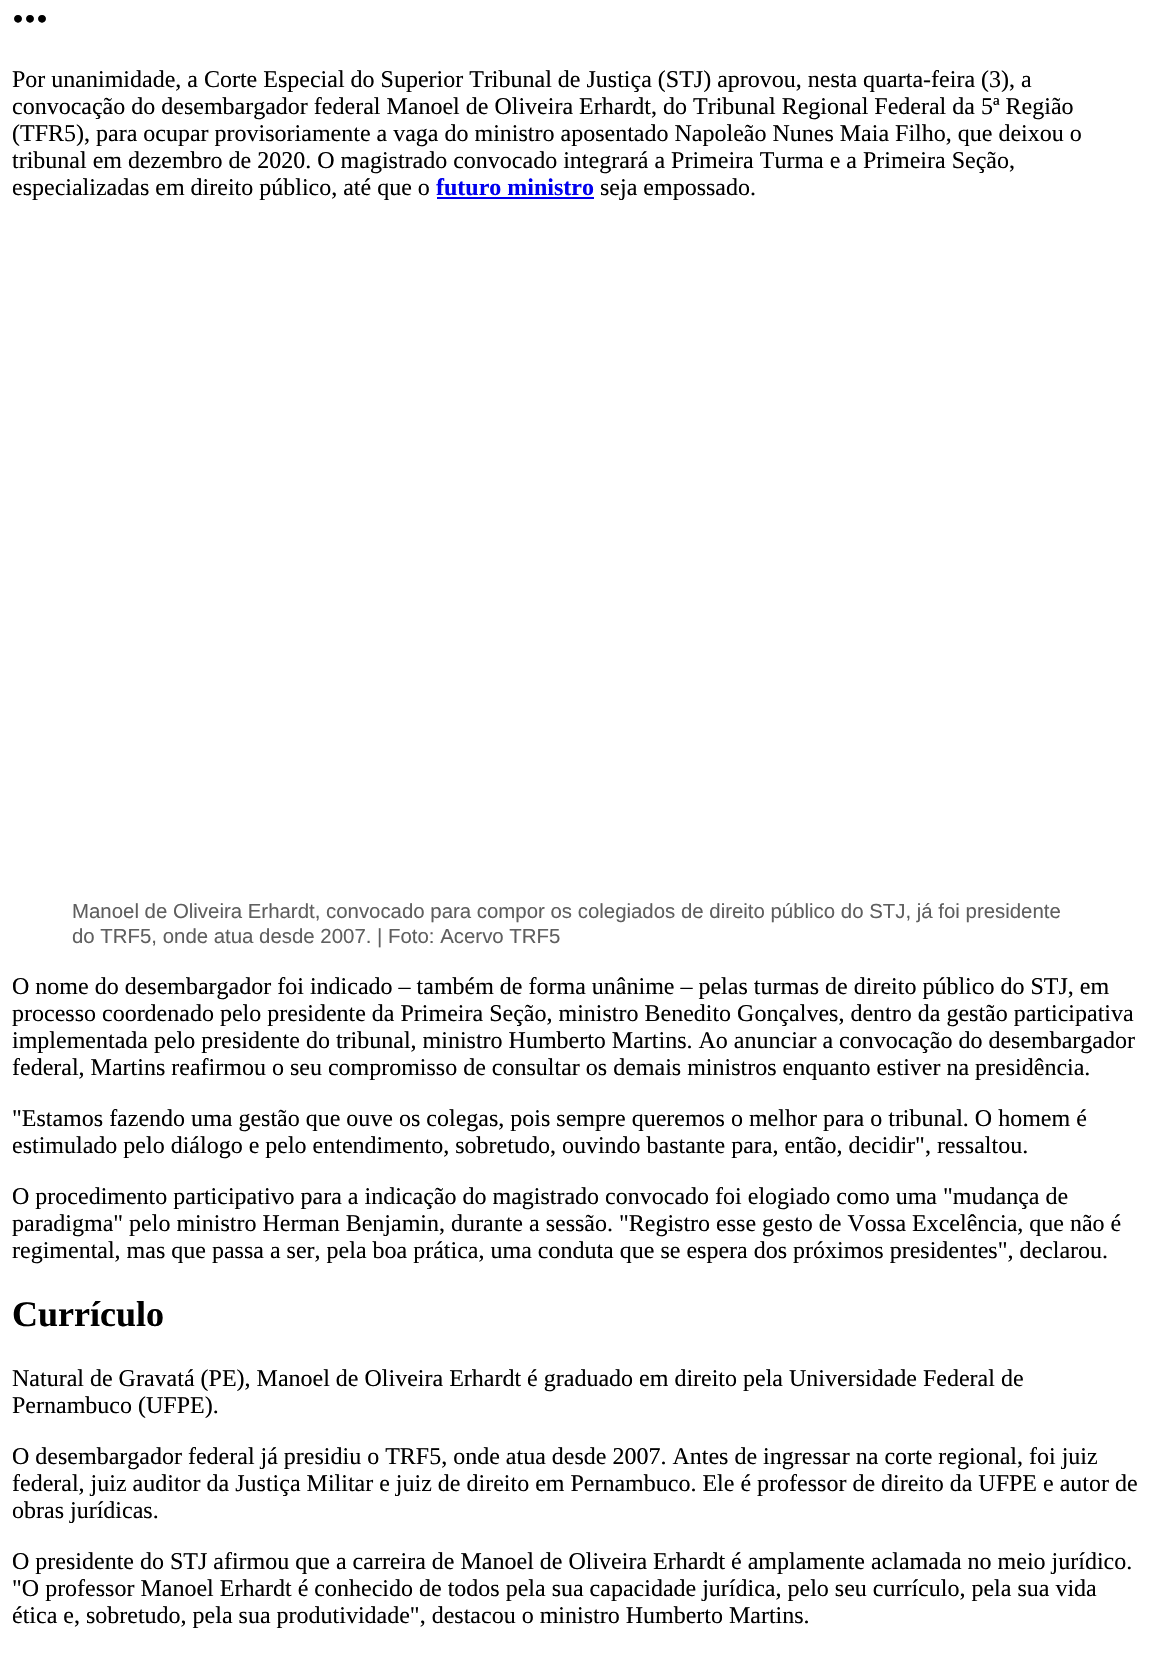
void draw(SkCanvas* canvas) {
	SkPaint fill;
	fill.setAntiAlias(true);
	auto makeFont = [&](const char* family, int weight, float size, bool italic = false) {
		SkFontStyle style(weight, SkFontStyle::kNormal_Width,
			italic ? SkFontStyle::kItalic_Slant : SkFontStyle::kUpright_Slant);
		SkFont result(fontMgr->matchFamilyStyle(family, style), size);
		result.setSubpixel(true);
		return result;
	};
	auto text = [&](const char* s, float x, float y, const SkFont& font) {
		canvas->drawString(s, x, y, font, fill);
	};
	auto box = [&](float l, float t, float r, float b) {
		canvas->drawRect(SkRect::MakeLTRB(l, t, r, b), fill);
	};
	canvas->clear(0xFFFFFFFF);
	fill.setColor(0xFF0000EE);
	box(437, 197, 594, 199);
	auto font1 = makeFont("Liberation Serif", 700, 48);
	fill.setColor(0xFF000000);
	text("...", 12, 22, font1);
	auto font2 = makeFont("Liberation Serif", 400, 24);
	text("Por unanimidade, a Corte Especial do Superior Tribunal de Justiça (STJ) aprovou, nesta quarta-feira (3), a", 12, 87, font2);
	text("convocação do desembargador federal Manoel de Oliveira Erhardt, do Tribunal Regional Federal da 5ª Região", 12, 114, font2);
	text("(TFR5), para ocupar provisoriamente a vaga do ministro aposentado Napoleão Nunes Maia Filho, que deixou o", 12, 141, font2);
	text("tribunal em dezembro de 2020. O magistrado convocado integrará a Primeira Turma e a Primeira Seção,", 12, 168, font2);
	text("especializadas em direito público, até que o", 12, 195, font2);
	auto font3 = makeFont("Liberation Serif", 700, 24);
	fill.setColor(0xFF0000EE);
	text("futuro ministro", 436, 195, font3);
	fill.setColor(0xFF000000);
	text("seja empossado.", 600, 195, font2);
	auto font4 = makeFont("Liberation Sans", 400, 20.4f);
	fill.setColor(0xFF5F5F5F);
	text("Manoel de Oliveira Erhardt, convocado para compor os colegiados de direito público do STJ, já foi presidente", 72, 918, font4);
	text("do TRF5, onde atua desde 2007. | Foto: Acervo TRF5", 72, 943, font4);
	fill.setColor(0xFF000000);
	text("O nome do desembargador foi indicado – também de forma unânime – pelas turmas de direito público do STJ, em", 12, 994, font2);
	text("processo coordenado pelo presidente da Primeira Seção, ministro Benedito Gonçalves, dentro da gestão participativa", 12, 1021, font2);
	text("implementada pelo presidente do tribunal, ministro Humberto Martins. Ao anunciar a convocação do desembargador", 12, 1048, font2);
	text("federal, Martins reafirmou o seu compromisso de consultar os demais ministros enquanto estiver na presidência.", 12, 1075, font2);
	text("\"Estamos fazendo uma gestão que ouve os colegas, pois sempre queremos o melhor para o tribunal. O homem é", 12, 1126, font2);
	text("estimulado pelo diálogo e pelo entendimento, sobretudo, ouvindo bastante para, então, decidir\", ressaltou.", 12, 1153, font2);
	text("O procedimento participativo para a indicação do magistrado convocado foi elogiado como uma \"mudança de", 12, 1204, font2);
	text("paradigma\" pelo ministro Herman Benjamin, durante a sessão. \"Registro esse gesto de Vossa Excelência, que não é", 12, 1231, font2);
	text("regimental, mas que passa a ser, pela boa prática, uma conduta que se espera dos próximos presidentes\", declarou.", 12, 1258, font2);
	auto font5 = makeFont("Liberation Serif", 700, 36);
	text("Currículo", 12, 1326, font5);
	text("Natural de Gravatá (PE), Manoel de Oliveira Erhardt é graduado em direito pela Universidade Federal de", 12, 1386, font2);
	text("Pernambuco (UFPE).", 12, 1413, font2);
	text("O desembargador federal já presidiu o TRF5, onde atua desde 2007. Antes de ingressar na corte regional, foi juiz", 12, 1464, font2);
	text("federal, juiz auditor da Justiça Militar e juiz de direito em Pernambuco. Ele é professor de direito da UFPE e autor de", 12, 1491, font2);
	text("obras jurídicas.", 12, 1518, font2);
	text("O presidente do STJ afirmou que a carreira de Manoel de Oliveira Erhardt é amplamente aclamada no meio jurídico.", 12, 1569, font2);
	text("\"O professor Manoel Erhardt é conhecido de todos pela sua capacidade jurídica, pelo seu currículo, pela sua vida", 12, 1596, font2);
	text("ética e, sobretudo, pela sua produtividade\", destacou o ministro Humberto Martins.", 12, 1623, font2);
}
